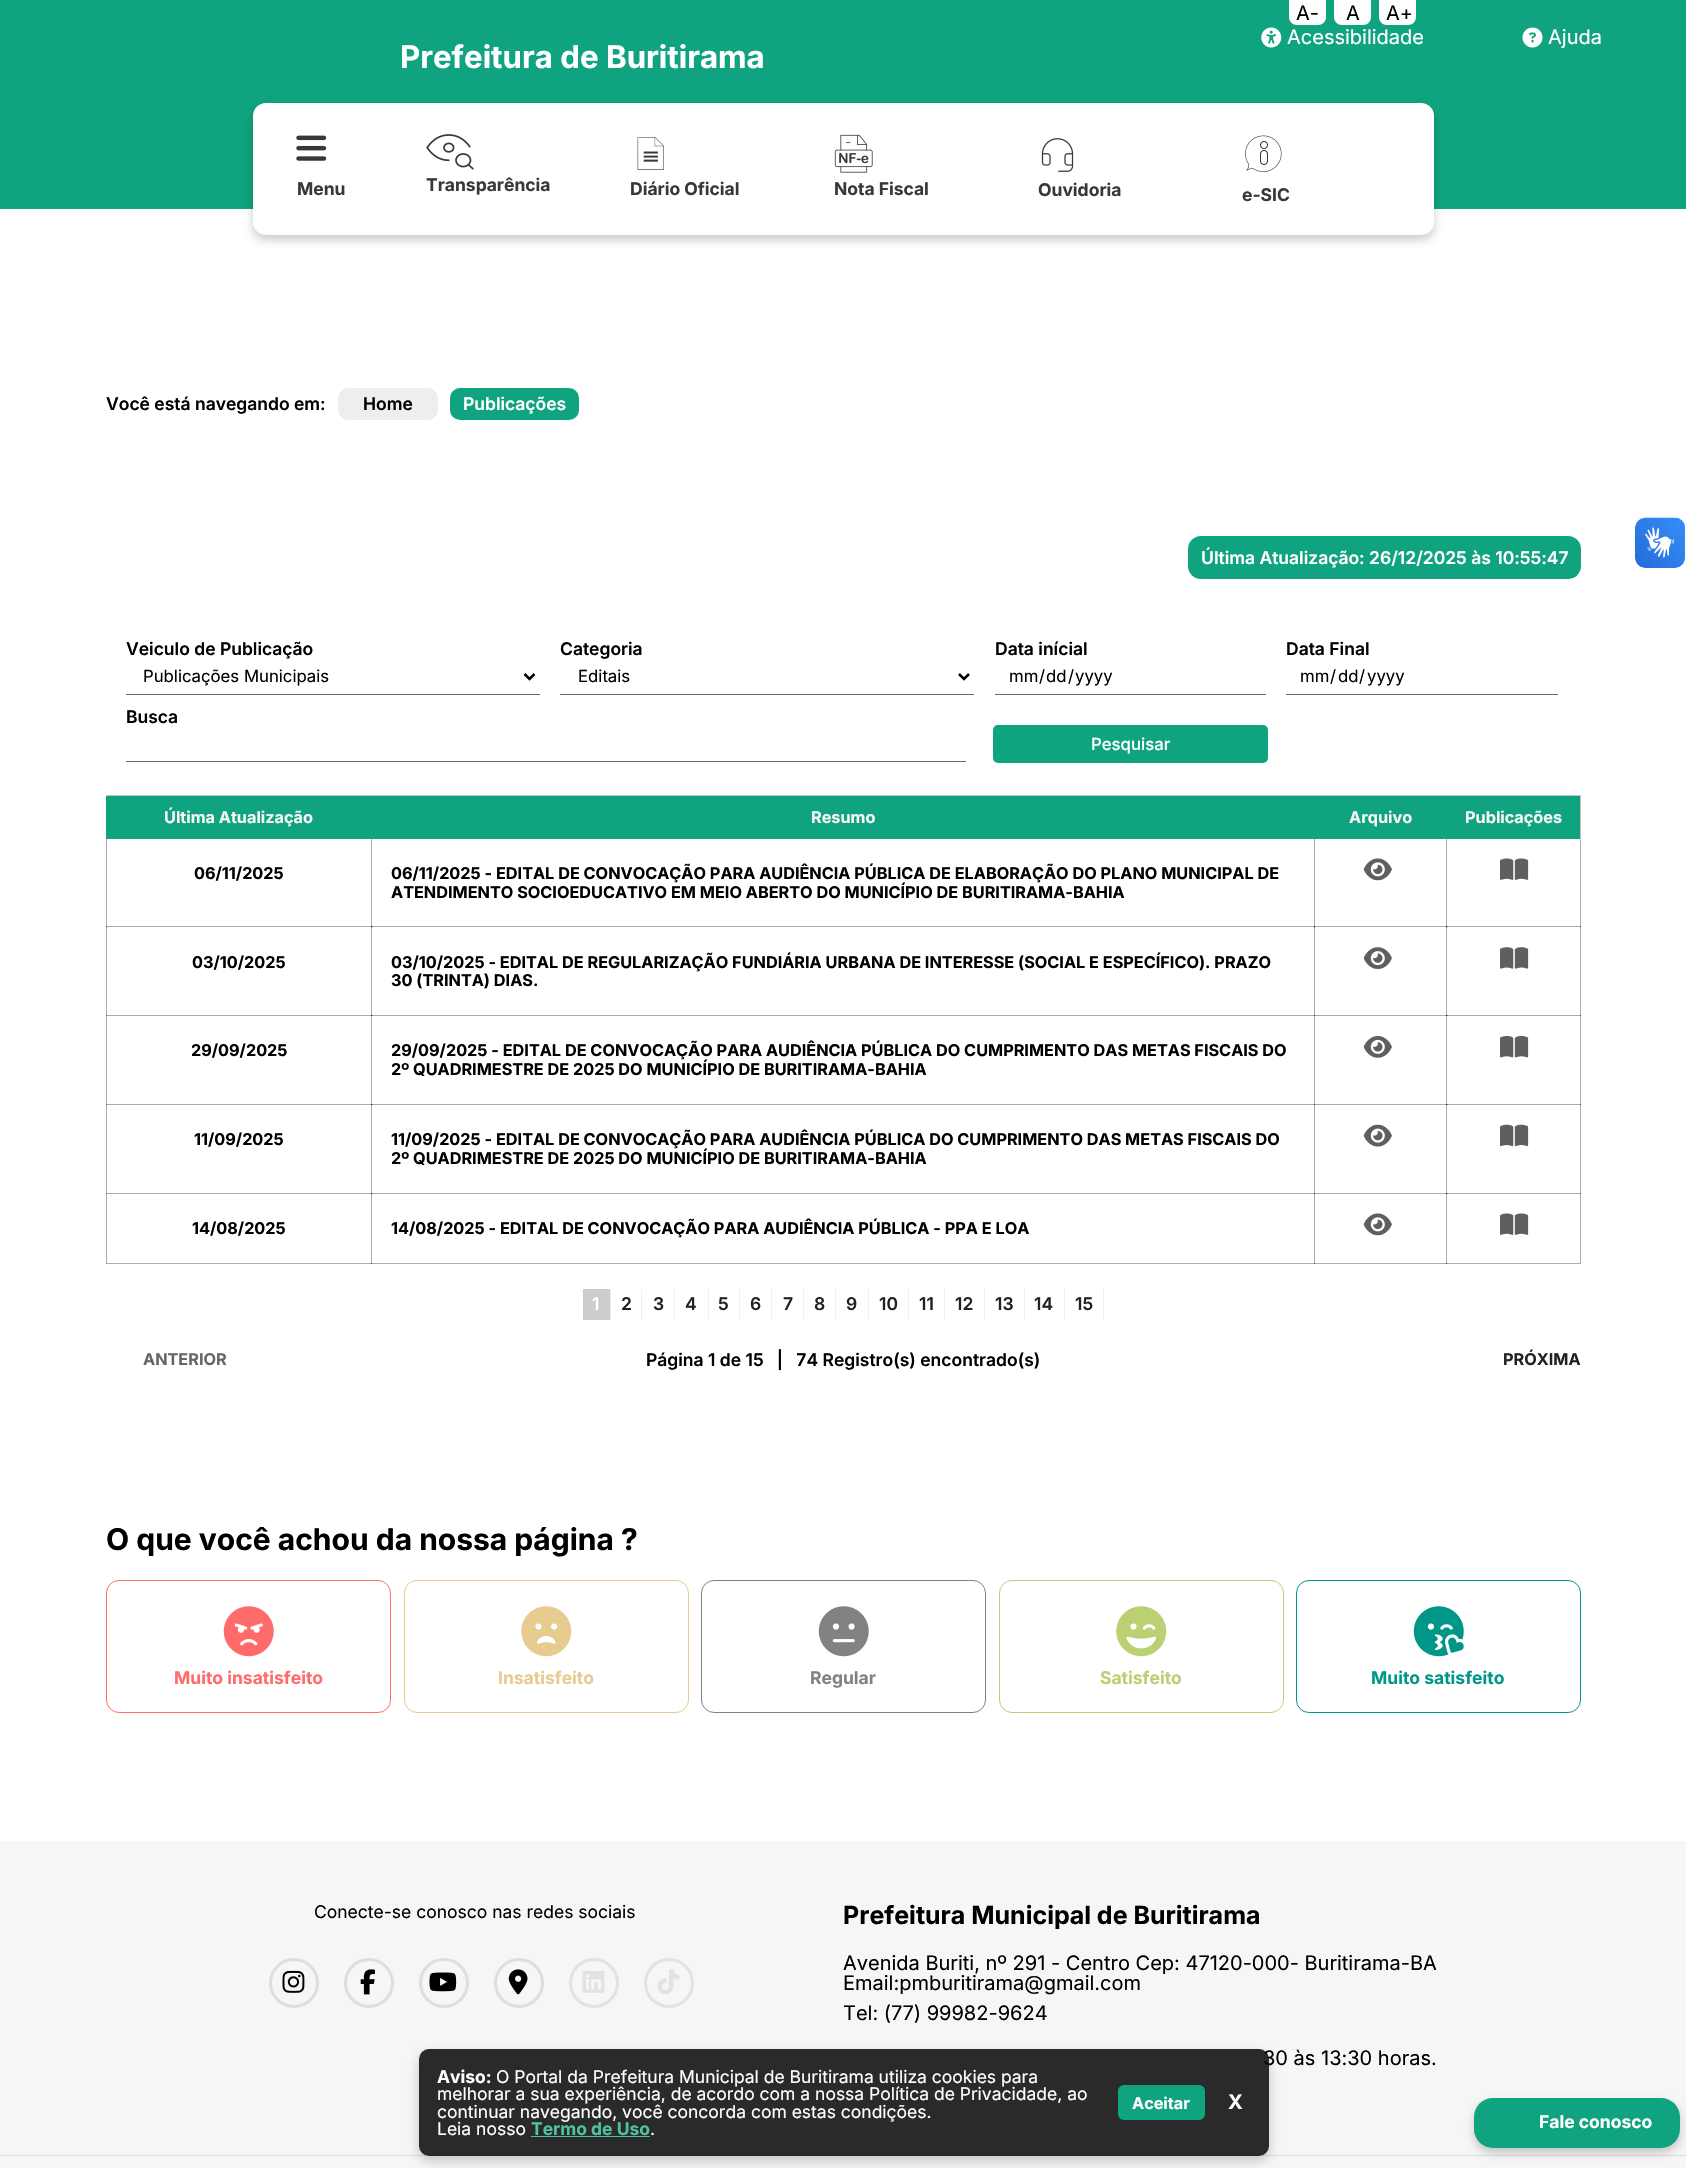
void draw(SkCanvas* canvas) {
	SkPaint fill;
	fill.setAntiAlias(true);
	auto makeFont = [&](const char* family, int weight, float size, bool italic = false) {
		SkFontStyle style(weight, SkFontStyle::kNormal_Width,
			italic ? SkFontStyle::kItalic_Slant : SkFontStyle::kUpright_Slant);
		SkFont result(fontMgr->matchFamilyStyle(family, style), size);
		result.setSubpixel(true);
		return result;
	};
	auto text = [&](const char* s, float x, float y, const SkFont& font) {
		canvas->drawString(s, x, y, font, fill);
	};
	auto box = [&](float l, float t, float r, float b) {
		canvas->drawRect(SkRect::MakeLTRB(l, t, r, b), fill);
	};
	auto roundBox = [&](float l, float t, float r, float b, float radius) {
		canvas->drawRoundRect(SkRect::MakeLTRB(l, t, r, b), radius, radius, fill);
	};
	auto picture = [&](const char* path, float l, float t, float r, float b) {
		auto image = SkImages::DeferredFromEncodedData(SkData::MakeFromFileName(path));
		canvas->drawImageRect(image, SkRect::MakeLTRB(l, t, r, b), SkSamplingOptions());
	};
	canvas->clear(0xFFFFFFFF);
	fill.setColor(0xFFABABAB);
	box(371, 838, 372, 928);
	box(1314, 838, 1315, 928);
	box(1446, 838, 1447, 928);
	box(106, 926, 373, 927);
	box(371, 926, 372, 1016);
	fill.setColor(0xFF737373);
	box(371, 926, 372, 928);
	fill.setColor(0xFFABABAB);
	box(371, 926, 1315, 927);
	fill.setColor(0xFF737373);
	box(371, 926, 373, 927);
	fill.setColor(0xFF343434);
	box(371, 926, 372, 927);
	fill.setColor(0xFFABABAB);
	box(1314, 926, 1315, 1016);
	fill.setColor(0xFF737373);
	box(1314, 926, 1315, 928);
	fill.setColor(0xFFABABAB);
	box(1314, 926, 1448, 927);
	fill.setColor(0xFF343434);
	box(1314, 926, 1315, 927);
	fill.setColor(0xFFABABAB);
	box(1446, 926, 1447, 1016);
	fill.setColor(0xFF737373);
	box(1446, 926, 1447, 928);
	fill.setColor(0xFFABABAB);
	box(1446, 926, 1581, 927);
	fill.setColor(0xFF737373);
	box(1446, 926, 1448, 927);
	fill.setColor(0xFF343434);
	box(1446, 926, 1447, 927);
	fill.setColor(0xFFABABAB);
	box(106, 1015, 373, 1016);
	box(371, 1015, 372, 1105);
	box(371, 1015, 1315, 1016);
	fill.setColor(0xFF737373);
	box(371, 1015, 373, 1016);
	fill.setColor(0xFF343434);
	box(371, 1015, 372, 1016);
	fill.setColor(0xFFABABAB);
	box(1314, 1015, 1315, 1105);
	box(1314, 1015, 1448, 1016);
	fill.setColor(0xFF343434);
	box(1314, 1015, 1315, 1016);
	fill.setColor(0xFFABABAB);
	box(1446, 1015, 1447, 1105);
	box(1446, 1015, 1581, 1016);
	fill.setColor(0xFF737373);
	box(1446, 1015, 1448, 1016);
	fill.setColor(0xFF343434);
	box(1446, 1015, 1447, 1016);
	fill.setColor(0xFFABABAB);
	box(106, 1104, 373, 1105);
	box(371, 1104, 372, 1194);
	box(371, 1104, 1315, 1105);
	fill.setColor(0xFF737373);
	box(371, 1104, 373, 1105);
	fill.setColor(0xFF343434);
	box(371, 1104, 372, 1105);
	fill.setColor(0xFFABABAB);
	box(1314, 1104, 1315, 1194);
	box(1314, 1104, 1448, 1105);
	fill.setColor(0xFF343434);
	box(1314, 1104, 1315, 1105);
	fill.setColor(0xFFABABAB);
	box(1446, 1104, 1447, 1194);
	box(1446, 1104, 1581, 1105);
	fill.setColor(0xFF737373);
	box(1446, 1104, 1448, 1105);
	fill.setColor(0xFF343434);
	box(1446, 1104, 1447, 1105);
	fill.setColor(0xFFABABAB);
	box(106, 1193, 373, 1194);
	box(371, 1193, 372, 1264);
	box(371, 1193, 1315, 1194);
	fill.setColor(0xFF737373);
	box(371, 1193, 373, 1194);
	fill.setColor(0xFF343434);
	box(371, 1193, 372, 1194);
	fill.setColor(0xFFABABAB);
	box(1314, 1193, 1315, 1264);
	box(1314, 1193, 1448, 1194);
	fill.setColor(0xFF343434);
	box(1314, 1193, 1315, 1194);
	fill.setColor(0xFFABABAB);
	box(1446, 1193, 1447, 1264);
	box(1446, 1193, 1581, 1194);
	fill.setColor(0xFF737373);
	box(1446, 1193, 1448, 1194);
	fill.setColor(0xFF343434);
	box(1446, 1193, 1447, 1194);
	fill.setColor(0xFF10A37F);
	box(0, 0, 1686, 209);
	fill.setColor(0xFFFFFFFF);
	canvas->drawPath(SkPathBuilder().moveTo(1289, 0).lineTo(1326, 0).lineTo(1326, 17).cubicTo(1326, 21.5f, 1322.5f, 25, 1318, 25).lineTo(1297, 25).cubicTo(1292.5f, 25, 1289, 21.5f, 1289, 17).close().detach(), fill);
	canvas->drawPath(SkPathBuilder().moveTo(1334, 0).lineTo(1371, 0).lineTo(1371, 17).cubicTo(1371, 21.5f, 1367.5f, 25, 1363, 25).lineTo(1342, 25).cubicTo(1337.5f, 25, 1334, 21.5f, 1334, 17).close().detach(), fill);
	canvas->drawPath(SkPathBuilder().moveTo(1379, 0).lineTo(1416, 0).lineTo(1416, 17).cubicTo(1416, 21.5f, 1412.5f, 25, 1408, 25).lineTo(1387, 25).cubicTo(1382.5f, 25, 1379, 21.5f, 1379, 17).close().detach(), fill);
	picture("image0.png", 1261, 27, 1282, 48);
	picture("image1.png", 1522, 27, 1543, 48);
	fill.setColor(0x33000000);
	fill.setMaskFilter(SkMaskFilter::MakeBlur(kNormal_SkBlurStyle, 5));
	canvas->drawRoundRect(SkRect::MakeLTRB(253, 108, 1434, 240), 13, 13, fill);
	fill.setMaskFilter(nullptr);
	fill.setColor(0xFFFFFFFF);
	roundBox(253, 103, 1434, 235, 13);
	picture("image2.png", 296, 135, 327, 161);
	picture("image3.png", 426, 134, 474, 170);
	picture("image4.png", 637, 137, 664, 170);
	picture("image5.png", 834, 134, 873, 173);
	picture("image6.png", 1041, 138, 1074, 172);
	picture("image7.png", 1245, 135, 1282, 172);
	fill.setColor(0xFFF6F6F6);
	box(0, 1841, 1686, 2168);
	fill.setColor(0xFFDEDEDE);
	box(0, 2155, 1686, 2156);
	fill.setColor(0x33000000);
	fill.setMaskFilter(SkMaskFilter::MakeBlur(kNormal_SkBlurStyle, 5));
	canvas->drawRoundRect(SkRect::MakeLTRB(1474, 2103, 1680, 2153), 19, 19, fill);
	fill.setMaskFilter(nullptr);
	fill.setColor(0xFF10A37F);
	roundBox(1474, 2098, 1680, 2148, 19);
	fill.setColor(0xFFEEEEEE);
	roundBox(338, 388, 438, 420, 10);
	fill.setColor(0xFF10A37F);
	roundBox(450, 388, 579, 420, 10);
	roundBox(1188, 536, 1581, 579, 13);
	fill.setColor(0xFF666666);
	box(126, 694, 540, 695);
	fill.setStyle(SkPaint::kStroke_Style);
	fill.setStrokeWidth(2.5f);
	fill.setColor(0xFF000000);
	canvas->drawPath(SkPathBuilder().moveTo(524.5f, 674).lineTo(529.5f, 679).lineTo(534.5f, 674).detach(), fill);
	fill.setStyle(SkPaint::kFill_Style);
	fill.setColor(0xFF666666);
	box(560, 694, 974, 695);
	fill.setStyle(SkPaint::kStroke_Style);
	fill.setColor(0xFF000000);
	canvas->drawPath(SkPathBuilder().moveTo(959, 674).lineTo(964, 679).lineTo(969, 674).detach(), fill);
	fill.setStyle(SkPaint::kFill_Style);
	fill.setColor(0xFF666666);
	box(995, 694, 1266, 695);
	box(1286, 694, 1558, 695);
	box(126, 761, 966, 762);
	fill.setColor(0xFF10A37F);
	roundBox(993, 725, 1268, 763, 5);
	fill.setColor(0xFFAEAEAE);
	box(1580, 838, 1581, 1264);
	fill.setColor(0xFF8F8F8F);
	box(1580, 926, 1581, 928);
	fill.setColor(0xFF606060);
	box(1580, 926, 1581, 927);
	box(1580, 1015, 1581, 1016);
	box(1580, 1104, 1581, 1105);
	box(1580, 1193, 1581, 1194);
	fill.setColor(0xFFAEAEAE);
	box(106, 1263, 1581, 1264);
	fill.setColor(0xFF8F8F8F);
	box(371, 1263, 373, 1264);
	fill.setColor(0xFF606060);
	box(371, 1263, 372, 1264);
	box(1314, 1263, 1315, 1264);
	fill.setColor(0xFF8F8F8F);
	box(1446, 1263, 1448, 1264);
	fill.setColor(0xFF606060);
	box(1446, 1263, 1447, 1264);
	fill.setColor(0xFF8F8F8F);
	box(1580, 1263, 1581, 1264);
	fill.setColor(0xFFAEAEAE);
	box(106, 838, 107, 1264);
	fill.setColor(0xFF8F8F8F);
	box(106, 926, 107, 928);
	fill.setColor(0xFF606060);
	box(106, 926, 107, 927);
	box(106, 1015, 107, 1016);
	box(106, 1104, 107, 1105);
	fill.setColor(0xFF8F8F8F);
	box(106, 1263, 107, 1264);
	fill.setColor(0xFF606060);
	box(106, 1193, 107, 1194);
	fill.setColor(0xFF10A37F);
	box(106, 796, 1580, 839);
	fill.setColor(0xFFC7C3C3);
	box(106, 795, 1581, 796);
	box(1580, 795, 1581, 839);
	picture("image8.png", 1363, 858, 1392, 881);
	picture("image9.png", 1500, 858, 1529, 880);
	picture("image10.png", 1363, 947, 1392, 970);
	picture("image11.png", 1500, 947, 1529, 969);
	picture("image12.png", 1363, 1035, 1392, 1058);
	picture("image13.png", 1500, 1035, 1529, 1058);
	picture("image14.png", 1363, 1124, 1392, 1147);
	picture("image15.png", 1500, 1124, 1529, 1147);
	picture("image8.png", 1363, 1213, 1392, 1236);
	picture("image9.png", 1500, 1213, 1529, 1235);
	fill.setColor(0xFFCCCCCC);
	box(583, 1289, 610, 1320);
	fill.setColor(0xFFEFEFEF);
	box(610, 1289, 611, 1320);
	box(641, 1289, 642, 1320);
	box(674, 1289, 675, 1320);
	box(708, 1289, 709, 1320);
	box(739, 1289, 740, 1320);
	box(771, 1289, 772, 1320);
	box(803, 1289, 804, 1320);
	box(835, 1289, 836, 1320);
	box(868, 1289, 869, 1320);
	box(908, 1289, 909, 1320);
	box(944, 1289, 945, 1320);
	box(984, 1289, 985, 1320);
	box(1024, 1289, 1025, 1320);
	box(1064, 1289, 1065, 1320);
	box(1103, 1289, 1104, 1320);
	fill.setStyle(SkPaint::kStroke_Style);
	fill.setStrokeWidth(1);
	fill.setColor(0xFFFF6B6B);
	canvas->drawRoundRect(SkRect::MakeLTRB(106.5f, 1580.5f, 390.5f, 1712.5f), 12.5f, 12.5f, fill);
	picture("image16.png", 223, 1606, 274, 1657);
	fill.setColor(0xFFE7CB8F);
	canvas->drawRoundRect(SkRect::MakeLTRB(404.5f, 1580.5f, 688.5f, 1712.5f), 12.5f, 12.5f, fill);
	picture("image17.png", 521, 1606, 572, 1657);
	fill.setColor(0xFF828282);
	canvas->drawRoundRect(SkRect::MakeLTRB(701.5f, 1580.5f, 985.5f, 1712.5f), 12.5f, 12.5f, fill);
	picture("image18.png", 818, 1606, 869, 1657);
	fill.setColor(0xFFBAD072);
	canvas->drawRoundRect(SkRect::MakeLTRB(999.5f, 1580.5f, 1283.5f, 1712.5f), 12.5f, 12.5f, fill);
	picture("image19.png", 1116, 1606, 1167, 1657);
	fill.setColor(0xFF009688);
	canvas->drawRoundRect(SkRect::MakeLTRB(1296.5f, 1580.5f, 1580.5f, 1712.5f), 12.5f, 12.5f, fill);
	picture("image20.png", 1413, 1606, 1464, 1657);
	picture("image21.png", 1635, 517, 1685, 568);
	picture("image22.png", 1635, 518, 1685, 568);
	fill.setStrokeWidth(3);
	fill.setColor(0xFFDEDEDE);
	canvas->drawCircle(294, 1983, 23.5f, fill);
	picture("image23.png", 282, 1970, 305, 1993);
	canvas->drawCircle(369, 1983, 23.5f, fill);
	picture("image24.png", 360, 1969, 375, 1995);
	canvas->drawCircle(444, 1983, 23.5f, fill);
	picture("image25.png", 429, 1972, 457, 1992);
	canvas->drawCircle(519, 1983, 23.5f, fill);
	picture("image26.png", 508, 1969, 528, 1995);
	fill.setColor(0xFFE2E2E2);
	canvas->drawCircle(594, 1983, 23.5f, fill);
	picture("image27.png", 582, 1971, 605, 1993);
	canvas->drawCircle(669, 1983, 23.5f, fill);
	picture("image28.png", 657, 1969, 680, 1995);
	canvas->save();
	canvas->clipPath(SkPathBuilder(SkPathFillType::kEvenOdd).moveTo(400, 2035).lineTo(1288, 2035).lineTo(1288, 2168).lineTo(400, 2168).close().moveTo(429, 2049).lineTo(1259, 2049).cubicTo(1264.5f, 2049, 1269, 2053.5f, 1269, 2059).lineTo(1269, 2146).cubicTo(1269, 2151.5f, 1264.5f, 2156, 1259, 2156).lineTo(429, 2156).cubicTo(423.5f, 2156, 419, 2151.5f, 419, 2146).lineTo(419, 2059).cubicTo(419, 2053.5f, 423.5f, 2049, 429, 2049).close().detach(), true);
	fill.setStyle(SkPaint::kFill_Style);
	fill.setColor(0x33000000);
	fill.setMaskFilter(SkMaskFilter::MakeBlur(kNormal_SkBlurStyle, 6));
	canvas->drawRoundRect(SkRect::MakeLTRB(419, 2054, 1269, 2161), 10, 10, fill);
	fill.setMaskFilter(nullptr);
	canvas->restore();
	auto font1 = makeFont("Inter", 400, 20);
	fill.setColor(0xFF000000);
	text("A-", 1296, 20, font1);
	text("A", 1346, 20, font1);
	text("A+", 1386, 20, font1);
	fill.setColor(0xFFFFFFFF);
	text("Acessibilidade", 1287, 44, font1);
	text("Ajuda", 1548, 44, font1);
	auto font2 = makeFont("Inter", 700, 31.25f);
	text("Prefeitura de Buritirama", 400, 68, font2);
	auto font3 = makeFont("Inter", 700, 17.5f);
	fill.setColor(0xFF383838);
	text("Menu", 297, 195, font3);
	text("Transparência", 426, 191, font3);
	text("Diário Oficial", 630, 195, font3);
	text("Nota Fiscal", 834, 195, font3);
	text("Ouvidoria", 1038, 196, font3);
	text("e-SIC", 1242, 201, font3);
	fill.setColor(0xFFFFFFFF);
	text("Fale conosco", 1539, 2128, font3);
	auto font4 = makeFont("Inter", 600, 17.5f);
	fill.setColor(0xFF000000);
	text("Você está navegando em:", 106, 410, font4);
	text("Home", 363, 410, font4);
	fill.setColor(0xFFFFFFFF);
	text("Publicações", 463, 410, font4);
	text("Última Atualização: 26/12/2025 às 10:55:47", 1201, 564, font4);
	fill.setColor(0xFF000000);
	text("Veiculo de Publicação", 126, 655, font4);
	auto font5 = makeFont("Inter", 400, 16.75f);
	text("Publicações Municipais", 143, 682, font5);
	text("Categoria", 560, 655, font4);
	text("Editais", 578, 682, font5);
	text("Data inícial", 995, 655, font4);
	text("mm", 1009, 682, font5);
	text("/", 1039, 682, font5);
	text("dd", 1046, 682, font5);
	text("/", 1068, 682, font5);
	text("yyyy", 1075, 682, font5);
	text("Data Final", 1286, 655, font4);
	text("mm", 1300, 682, font5);
	text("/", 1330, 682, font5);
	text("dd", 1338, 682, font5);
	text("/", 1359, 682, font5);
	text("yyyy", 1367, 682, font5);
	text("Busca", 126, 723, font4);
	auto font6 = makeFont("Inter", 500, 16.75f);
	fill.setColor(0xFFFFFFFF);
	text("Pesquisar", 1091, 750, font6);
	auto font7 = makeFont("Inter", 700, 16.25f);
	fill.setColor(0xFFF7F6F6);
	text("Última Atualização", 164, 823, font7);
	text("Resumo", 811, 823, font7);
	text("Arquivo", 1349, 823, font7);
	text("Publicações", 1465, 823, font7);
	fill.setColor(0xFF000000);
	text("06/11/2025", 194, 879, font7);
	text("06/11/2025 - EDITAL DE CONVOCAÇÃO PARA AUDIÊNCIA PÚBLICA DE ELABORAÇÃO DO PLANO MUNICIPAL DE", 391, 879, font7);
	text("ATENDIMENTO SOCIOEDUCATIVO EM MEIO ABERTO DO MUNICÍPIO DE BURITIRAMA-BAHIA", 391, 898, font7);
	text("03/10/2025", 192, 968, font7);
	text("03/10/2025 - EDITAL DE REGULARIZAÇÃO FUNDIÁRIA URBANA DE INTERESSE (SOCIAL E ESPECÍFICO). PRAZO", 391, 968, font7);
	text("30 (TRINTA) DIAS.", 391, 986, font7);
	text("29/09/2025", 191, 1056, font7);
	text("29/09/2025 - EDITAL DE CONVOCAÇÃO PARA AUDIÊNCIA PÚBLICA DO CUMPRIMENTO DAS METAS FISCAIS DO", 391, 1056, font7);
	text("2º QUADRIMESTRE DE 2025 DO MUNICÍPIO DE BURITIRAMA-BAHIA", 391, 1075, font7);
	text("11/09/2025", 194, 1145, font7);
	text("11/09/2025 - EDITAL DE CONVOCAÇÃO PARA AUDIÊNCIA PÚBLICA DO CUMPRIMENTO DAS METAS FISCAIS DO", 391, 1145, font7);
	text("2º QUADRIMESTRE DE 2025 DO MUNICÍPIO DE BURITIRAMA-BAHIA", 391, 1164, font7);
	text("14/08/2025", 192, 1234, font7);
	text("14/08/2025 - EDITAL DE CONVOCAÇÃO PARA AUDIÊNCIA PÚBLICA - PPA E LOA", 391, 1234, font7);
	fill.setColor(0xFFFFFFFF);
	text("1", 592, 1310, font4);
	fill.setColor(0xFF222222);
	text("2", 621, 1310, font4);
	text("3", 653, 1310, font4);
	text("4", 685, 1310, font4);
	text("5", 718, 1310, font4);
	text("6", 750, 1310, font4);
	text("7", 783, 1310, font4);
	text("8", 814, 1310, font4);
	text("9", 846, 1310, font4);
	text("10", 879, 1310, font4);
	text("11", 919, 1310, font4);
	text("12", 955, 1310, font4);
	text("13", 995, 1310, font4);
	text("14", 1034, 1310, font4);
	text("15", 1075, 1310, font4);
	fill.setColor(0xFF666666);
	text("ANTERIOR", 143, 1365, font7);
	fill.setColor(0xFF000000);
	text("Página 1 de 15   |   74 Registro(s) encontrado(s)", 646, 1366, font4);
	fill.setColor(0xFF222222);
	text("PRÓXIMA", 1503, 1365, font7);
	auto font8 = makeFont("Inter", 700, 30);
	fill.setColor(0xFF000000);
	text("O que você achou da nossa página ?", 106, 1550, font8);
	fill.setColor(0xFFFF6B6B);
	text("Muito insatisfeito", 174, 1684, font3);
	fill.setColor(0xFFE7CB8F);
	text("Insatisfeito", 498, 1684, font3);
	fill.setColor(0xFF828282);
	text("Regular", 810, 1684, font3);
	fill.setColor(0xFFBAD072);
	text("Satisfeito", 1100, 1684, font3);
	fill.setColor(0xFF009688);
	text("Muito satisfeito", 1371, 1684, font3);
	auto font9 = makeFont("Inter", 400, 17.5f);
	fill.setColor(0xFF000000);
	text("Conecte-se conosco nas redes sociais", 314, 1918, font9);
	auto font10 = makeFont("Inter", 700, 25);
	text("Prefeitura Municipal de Buritirama", 843, 1924, font10);
	text("Avenida Buriti, nº 291 - Centro Cep: 47120-000- Buritirama-BA", 843, 1970, font1);
	text("Email:pmburitirama@gmail.com", 843, 1990, font1);
	text("Tel: (77) 99982-9624", 843, 2020, font1);
	text("30 às 13:30 horas.", 1263, 2065, font1);
	fill.setColor(0xD4000000);
	roundBox(419, 2049, 1269, 2156, 10);
	fill.setColor(0xFFFFFFFF);
	text("Aviso:", 437, 2083, font3);
	text("O Portal da Prefeitura Municipal de Buritirama utiliza cookies para", 496, 2083, font9);
	text("melhorar a sua experiência, de acordo com a nossa Política de Privacidade, ao", 437, 2100, font9);
	text("continuar navegando, você concorda com estas condições.", 437, 2118, font9);
	text("Leia nosso", 437, 2135, font9);
	fill.setColor(0xFF4DC3A4);
	text("Termo de Uso", 531, 2135, font3);
	box(531, 2136, 650, 2137);
	fill.setColor(0xFFFFFFFF);
	text(".", 650, 2135, font9);
	fill.setColor(0xFF10A37F);
	roundBox(1118, 2085, 1205, 2120, 6);
	fill.setColor(0xFFFFFFFF);
	text("Aceitar", 1132, 2109, font7);
	auto font11 = makeFont("Inter", 700, 20);
	text("X", 1228, 2109, font11);
}
